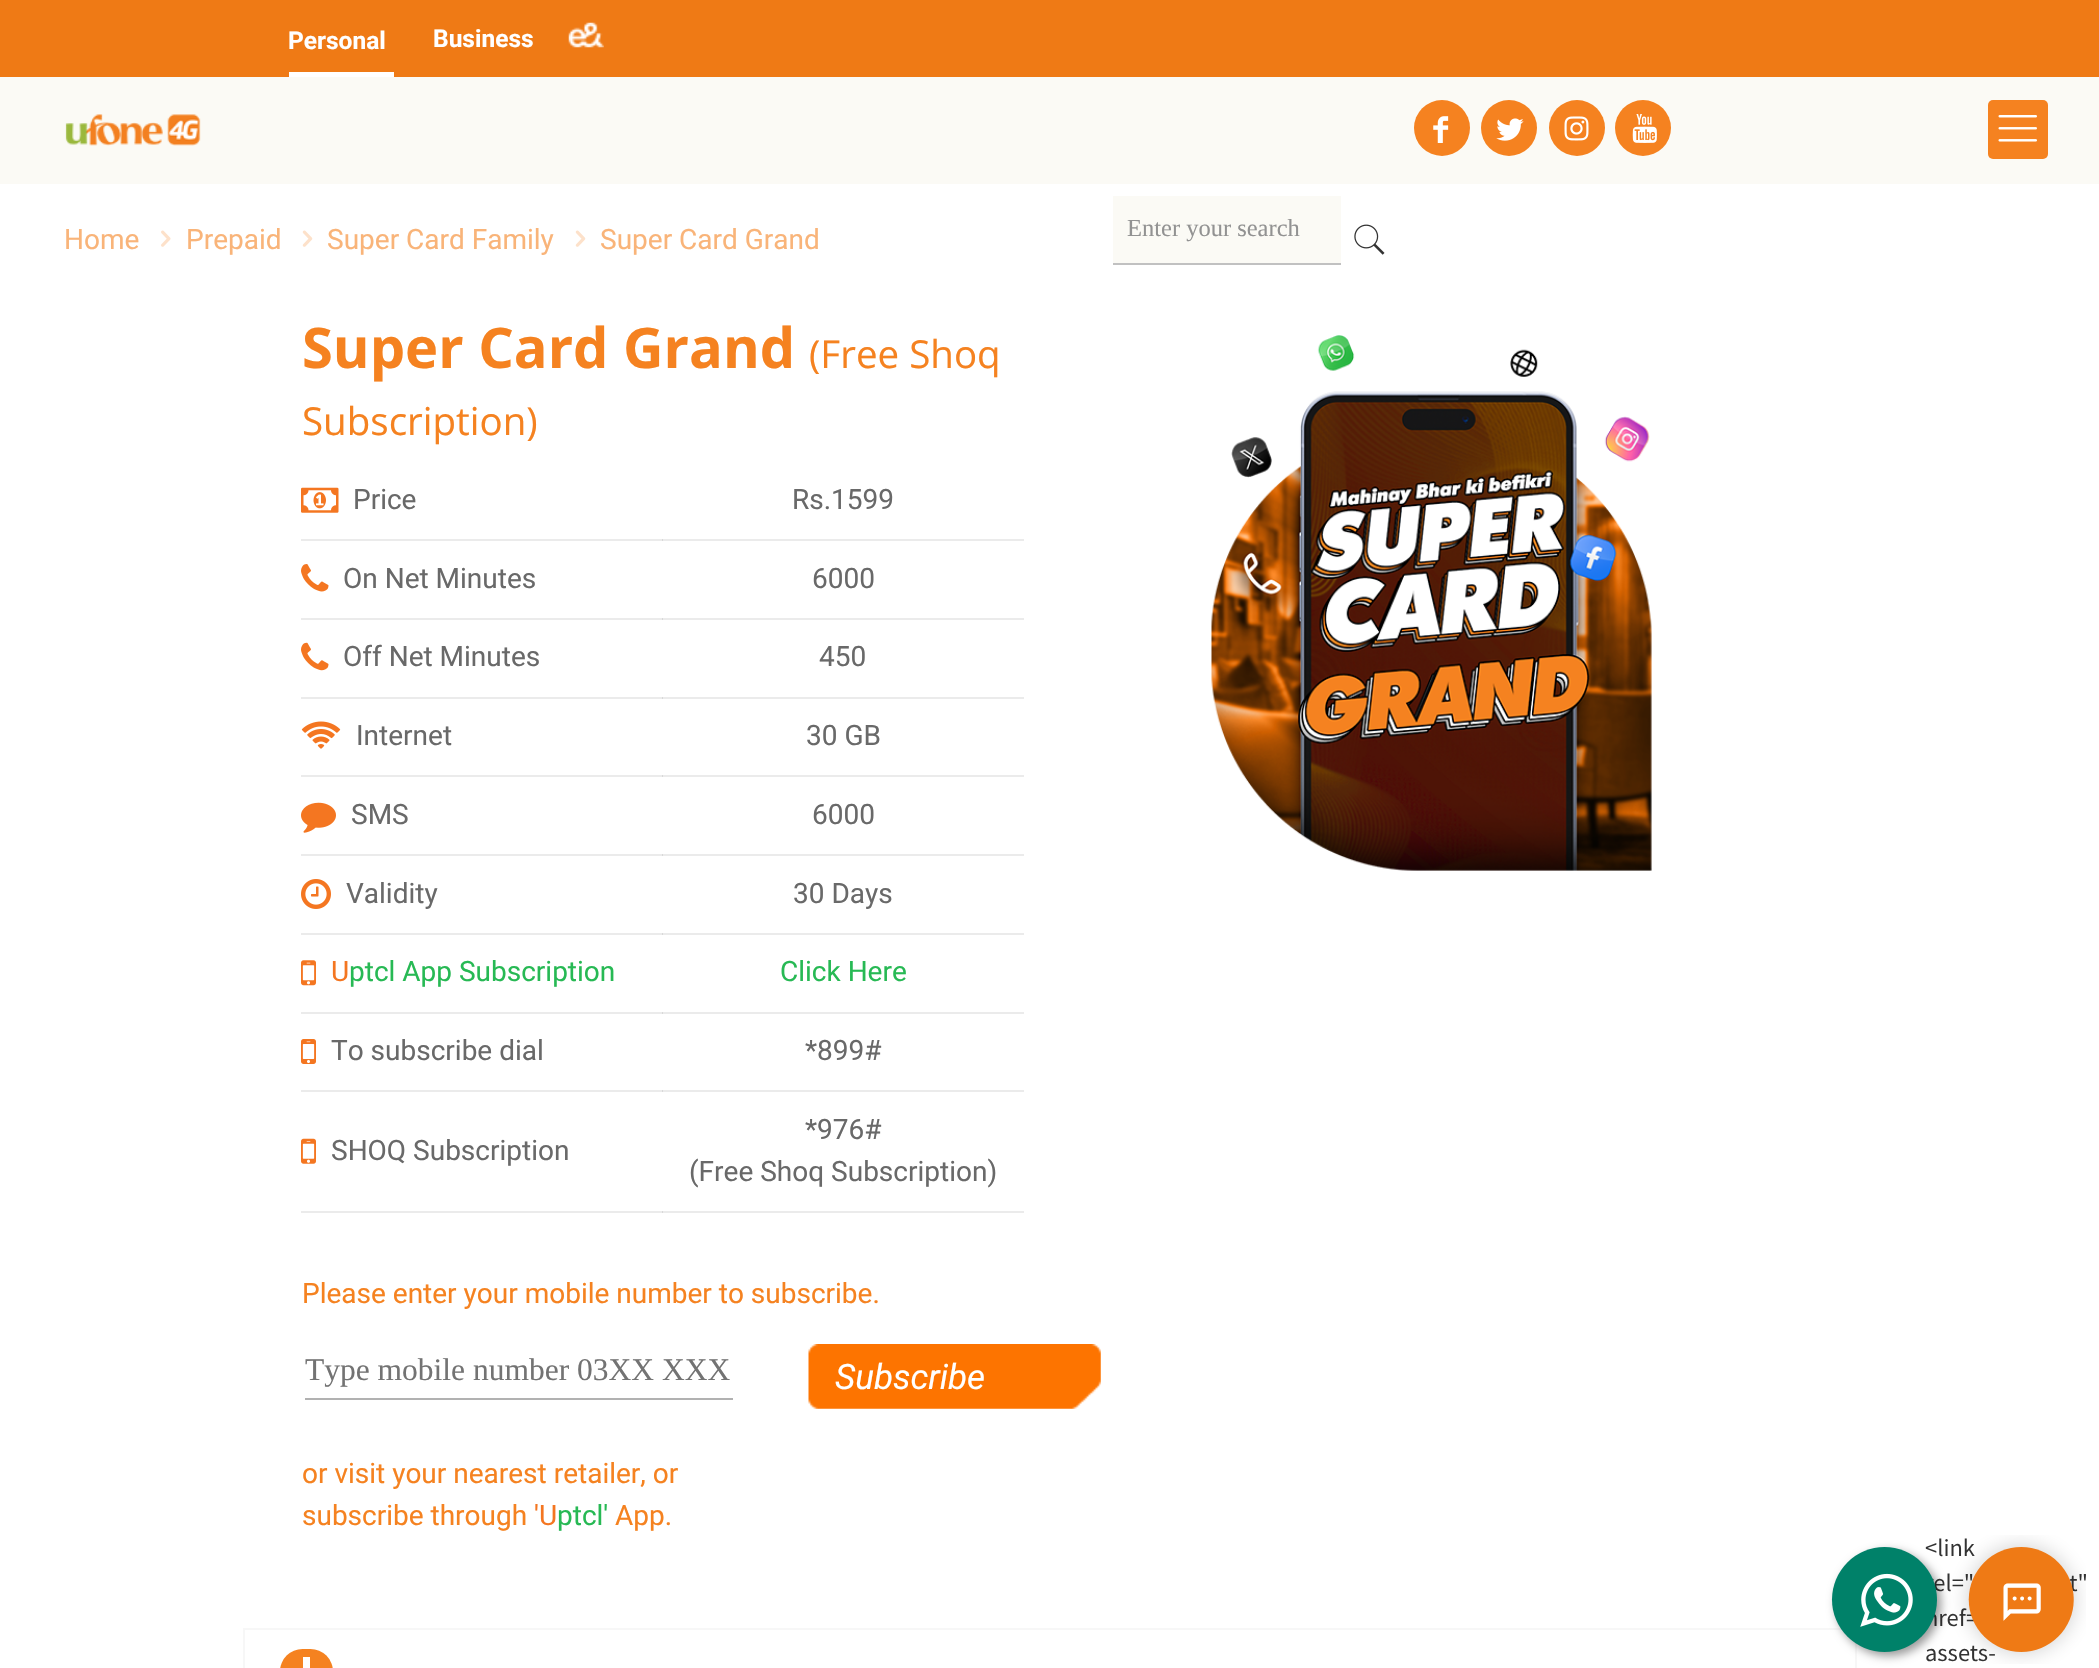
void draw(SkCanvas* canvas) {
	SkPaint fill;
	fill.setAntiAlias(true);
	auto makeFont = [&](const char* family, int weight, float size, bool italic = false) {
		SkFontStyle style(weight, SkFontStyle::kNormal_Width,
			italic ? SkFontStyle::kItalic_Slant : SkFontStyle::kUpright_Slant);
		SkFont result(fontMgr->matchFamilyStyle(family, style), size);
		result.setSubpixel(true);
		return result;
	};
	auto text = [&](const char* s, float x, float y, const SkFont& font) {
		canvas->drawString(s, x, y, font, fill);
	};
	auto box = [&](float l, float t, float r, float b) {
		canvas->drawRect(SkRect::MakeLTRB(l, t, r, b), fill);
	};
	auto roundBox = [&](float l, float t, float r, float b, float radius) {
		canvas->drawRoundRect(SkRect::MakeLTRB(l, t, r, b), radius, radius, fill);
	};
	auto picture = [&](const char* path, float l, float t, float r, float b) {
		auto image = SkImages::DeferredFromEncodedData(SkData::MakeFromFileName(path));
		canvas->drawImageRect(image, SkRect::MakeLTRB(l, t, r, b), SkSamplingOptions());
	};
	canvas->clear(0xFFFFFFFF);
	fill.setColor(0xFFEBEBEB);
	box(301, 539, 1024, 541);
	box(301, 618, 1024, 620);
	box(301, 697, 1024, 699);
	box(301, 775, 1024, 777);
	box(301, 854, 1024, 856);
	box(301, 933, 1024, 935);
	box(301, 1012, 1024, 1014);
	box(301, 1090, 1024, 1092);
	box(301, 1211, 1024, 1213);
	fill.setColor(0xFFEF7A15);
	box(0, 0, 2099, 77);
	fill.setColor(0xFFFFFFFF);
	box(289, 72, 394, 77);
	picture("image0.png", 568, 22, 604, 48);
	fill.setColor(0xFFFBFAF5);
	box(0, 77, 2099, 184);
	fill.setColor(0xFFF58220);
	canvas->drawCircle(1442, 128, 28, fill);
	picture("image1.png", 1433, 116, 1449, 143);
	canvas->drawCircle(1509, 128, 28, fill);
	picture("image2.png", 1496, 118, 1524, 141);
	canvas->drawCircle(1577, 128, 28, fill);
	picture("image3.png", 1564, 116, 1589, 141);
	canvas->drawCircle(1643, 128, 28, fill);
	picture("image4.png", 1632, 114, 1657, 143);
	picture("image5.png", 161, 230, 171, 247);
	picture("image6.png", 302, 230, 313, 247);
	picture("image6.png", 575, 230, 586, 247);
	picture("image7.png", 65, 114, 201, 146);
	roundBox(1988, 100, 2048, 159, 5);
	picture("image8.png", 1998, 115, 2037, 142);
	fill.setColor(0xFFFBFAF5);
	box(1113, 196, 1341, 263);
	fill.setColor(0xFFC1C1C1);
	box(1113, 263, 1341, 265);
	picture("image9.png", 1354, 224, 1385, 255);
	picture("image10.png", 301, 487, 339, 513);
	fill.setColor(0xFFD8D8D8);
	box(662, 539, 663, 541);
	picture("image11.png", 301, 564, 329, 592);
	box(662, 618, 663, 620);
	picture("image12.png", 301, 642, 329, 671);
	box(662, 697, 663, 699);
	picture("image13.png", 301, 721, 341, 749);
	box(662, 775, 663, 777);
	picture("image14.png", 301, 802, 336, 833);
	box(662, 854, 663, 856);
	picture("image15.png", 301, 879, 331, 909);
	box(662, 933, 663, 935);
	picture("image16.png", 301, 960, 316, 986);
	box(662, 1012, 663, 1014);
	picture("image17.png", 301, 1039, 316, 1064);
	box(662, 1090, 663, 1092);
	picture("image18.png", 301, 1138, 316, 1164);
	box(662, 1211, 663, 1213);
	fill.setColor(0xFFB1B1B1);
	box(305, 1398, 733, 1400);
	picture("image19.png", 808, 1344, 1101, 1409);
	picture("image20.png", 1211, 335, 1652, 871);
	fill.setStyle(SkPaint::kStroke_Style);
	fill.setStrokeWidth(2);
	fill.setColor(0xFFF7F7F7);
	canvas->drawRect(SkRect::MakeLTRB(244, 1629, 1856, 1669), fill);
	fill.setStyle(SkPaint::kFill_Style);
	fill.setColor(0xFFF58220);
	roundBox(280, 1649, 333, 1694, 26);
	fill.setColor(0xFFFFFFFF);
	box(303, 1657, 310, 1668);
	picture("image22.png", 1925, 1535, 2086, 1664);
	fill.setColor(0x66000000);
	fill.setMaskFilter(SkMaskFilter::MakeBlur(kNormal_SkBlurStyle, 5));
	canvas->drawRoundRect(SkRect::MakeLTRB(1836, 1551, 1941, 1656), 52.5f, 52.5f, fill);
	fill.setMaskFilter(nullptr);
	fill.setColor(0xFF008169);
	canvas->drawCircle(1884.5f, 1599.5f, 52.5f, fill);
	picture("image21.png", 1860, 1573, 1913, 1627);
	auto font1 = makeFont("Roboto", 700, 24.5f);
	fill.setColor(0xFFFFFFFF);
	text("Personal", 288, 49, font1);
	text("Business", 433, 47, font1);
	auto font2 = makeFont("Roboto", 400, 28);
	fill.setColor(0xFFF9B479);
	text("Home", 64, 249, font2);
	text("Prepaid", 186, 249, font2);
	text("Super Card Family", 327, 249, font2);
	text("Super Card Grand", 600, 249, font2);
	auto font3 = makeFont("Liberation Serif", 400, 24.5f);
	fill.setColor(0xFF929292);
	text("Enter your search", 1127, 236, font3);
	auto font4 = makeFont("Open Sans", 700, 56);
	fill.setColor(0xFFF58220);
	text("Super Card Grand", 302, 368, font4);
	auto font5 = makeFont("Open Sans", 400, 38.5f);
	text("(Free Shoq", 809, 368, font5);
	text("Subscription)", 302, 435, font5);
	fill.setColor(0xFF696969);
	text("Price", 353, 509, font2);
	text("Rs.1599", 792, 509, font2);
	text("On Net Minutes", 343, 588, font2);
	text("6000", 812, 588, font2);
	text("Off Net Minutes", 343, 666, font2);
	text("450", 819, 666, font2);
	text("Internet", 356, 745, font2);
	text("30 GB", 806, 745, font2);
	text("SMS", 351, 824, font2);
	text("6000", 812, 824, font2);
	text("Validity", 346, 903, font2);
	text("30 Days", 793, 903, font2);
	fill.setColor(0xFFF47621);
	text("U", 331, 981, font2);
	fill.setColor(0xFF27B954);
	text("ptcl App Subscription", 349, 981, font2);
	text("Click Here", 780, 981, font2);
	fill.setColor(0xFF696969);
	text("To subscribe dial", 331, 1060, font2);
	text("*899#", 805, 1060, font2);
	text("SHOQ Subscription", 331, 1160, font2);
	text("*976#", 805, 1139, font2);
	text("(Free Shoq Subscription)", 689, 1181, font2);
	fill.setColor(0xFFF58220);
	text("Please enter your mobile number to subscribe.", 302, 1303, font2);
	auto font6 = makeFont("Liberation Serif", 400, 31.5f);
	fill.setColor(0xFF737373);
	text("Type mobile number 03XX XXX", 305, 1380, font6);
	auto font7 = makeFont("Roboto", 400, 35, true);
	fill.setColor(0xFFFFFFFF);
	text("Subscribe", 835, 1389, font7);
	fill.setColor(0xFFF58220);
	text("or visit your nearest retailer, or", 302, 1483, font2);
	text("subscribe through", 302, 1525, font2);
	fill.setColor(0xFFF47621);
	text("'U", 534, 1525, font2);
	fill.setColor(0xFF27B954);
	text("ptcl'", 557, 1525, font2);
	fill.setColor(0xFFF58220);
	text("App.", 615, 1525, font2);
}
